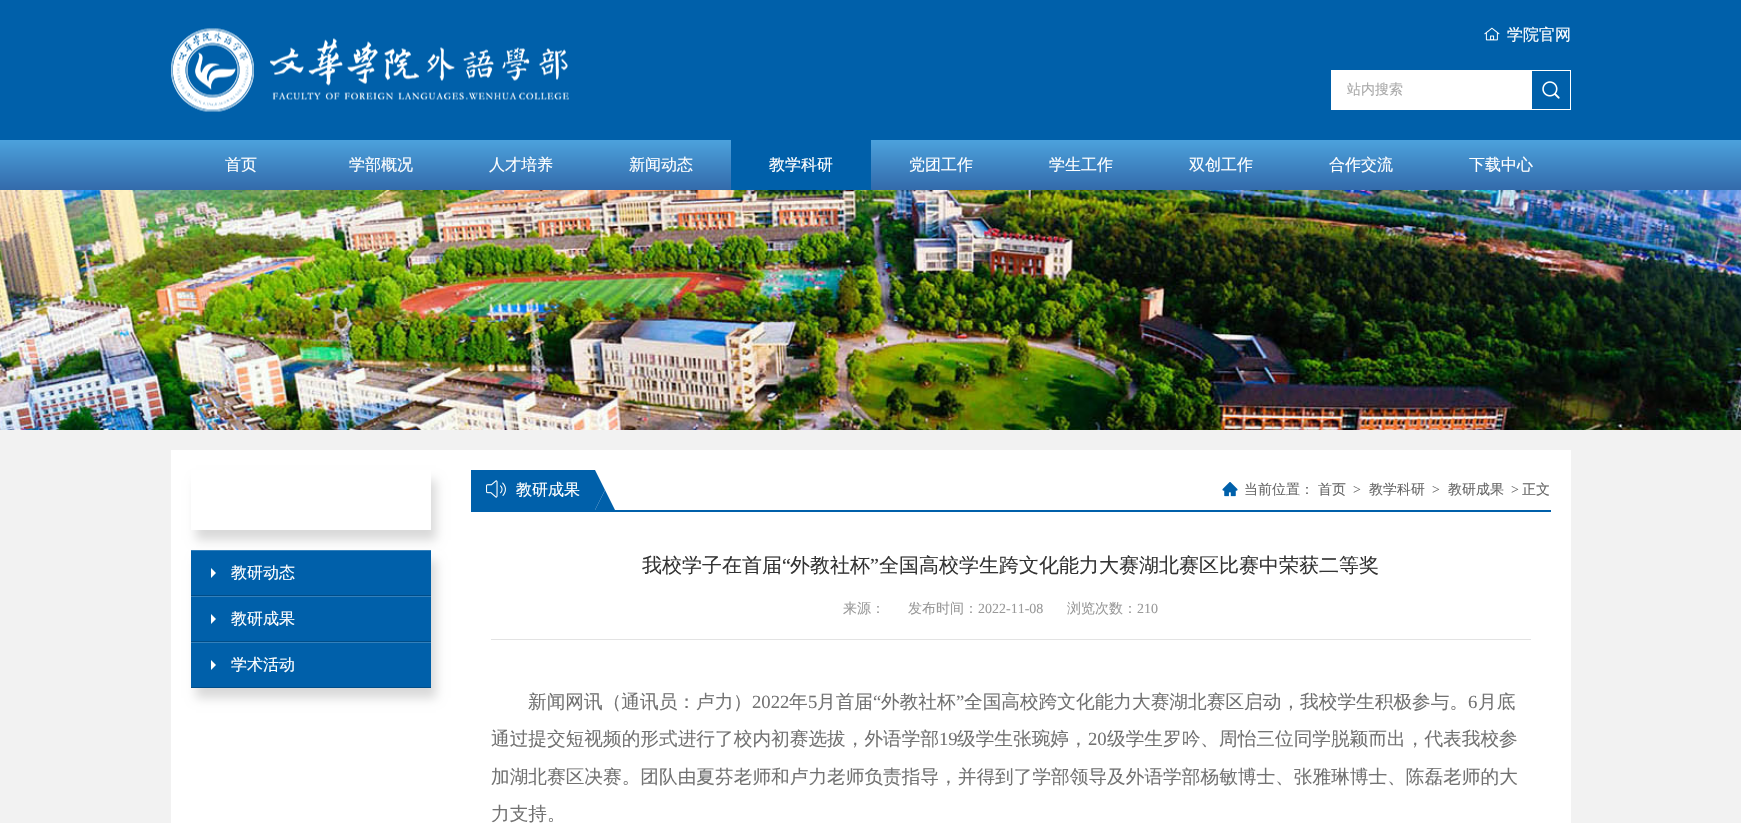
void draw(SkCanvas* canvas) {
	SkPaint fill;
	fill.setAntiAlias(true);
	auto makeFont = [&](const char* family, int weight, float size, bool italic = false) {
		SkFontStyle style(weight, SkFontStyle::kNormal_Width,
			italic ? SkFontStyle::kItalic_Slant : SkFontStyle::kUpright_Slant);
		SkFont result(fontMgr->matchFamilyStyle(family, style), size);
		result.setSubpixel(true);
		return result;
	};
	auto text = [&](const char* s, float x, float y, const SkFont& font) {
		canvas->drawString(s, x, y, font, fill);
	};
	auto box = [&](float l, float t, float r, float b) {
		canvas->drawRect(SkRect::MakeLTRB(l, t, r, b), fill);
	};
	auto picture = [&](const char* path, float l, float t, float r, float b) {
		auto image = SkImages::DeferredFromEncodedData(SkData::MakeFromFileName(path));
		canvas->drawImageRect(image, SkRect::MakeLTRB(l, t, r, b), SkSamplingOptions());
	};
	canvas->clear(0xFFF2F2F2);
	fill.setColor(0xFF0060AA);
	box(0, 0, 1741, 140);
	picture("image0.png", 171, 28, 569, 112);
	fill.setStyle(SkPaint::kStroke_Style);
	fill.setStrokeWidth(1);
	fill.setColor(0xFFFFFFFF);
	canvas->drawRect(SkRect::MakeLTRB(1331.5f, 70.5f, 1570.5f, 109.5f), fill);
	fill.setStyle(SkPaint::kFill_Style);
	box(1332, 71, 1532, 109);
	picture("image1.png", 1542, 81, 1560, 99);
	picture("image2.png", 1484, 27, 1500, 41);
	{
		const SkColor colors[] = {0xFF4CA2DC, 0xFF336AAB};
		const float stops[] = {0, 1};
		const SkPoint ends[] = {{871, 140}, {871, 190}};
		fill.setShader(SkGradientShader::MakeLinear(ends, colors, stops, 2, SkTileMode::kClamp));
		fill.setAlpha(255);
	}
	box(0, 140, 1741, 190);
	fill.setShader(nullptr);
	fill.setColor(0xFF0060AA);
	box(731, 140, 871, 190);
	picture("image3.png", 0, 190, 1741, 430);
	fill.setColor(0xFFFFFFFF);
	box(171, 450, 1571, 823);
	canvas->save();
	canvas->clipPath(SkPathBuilder(SkPathFillType::kEvenOdd).moveTo(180, 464).lineTo(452, 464).lineTo(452, 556).lineTo(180, 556).close().moveTo(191, 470).lineTo(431, 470).lineTo(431, 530).lineTo(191, 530).close().detach(), true);
	fill.setColor(0x26000000);
	fill.setMaskFilter(SkMaskFilter::MakeBlur(kNormal_SkBlurStyle, 5));
	canvas->drawRect(SkRect::MakeLTRB(196, 480, 436, 540), fill);
	fill.setMaskFilter(nullptr);
	canvas->restore();
	fill.setMaskFilter(SkMaskFilter::MakeBlur(kNormal_SkBlurStyle, 5));
	canvas->drawRect(SkRect::MakeLTRB(196, 560, 436, 698), fill);
	fill.setMaskFilter(nullptr);
	fill.setColor(0xFF0060AA);
	box(191, 551, 431, 687);
	fill.setColor(0xFF3380BB);
	box(191, 550, 431, 551);
	fill.setColor(0xFF004D88);
	box(191, 595, 431, 596);
	fill.setColor(0xFFFFFFFF);
	canvas->drawPath(SkPathBuilder().moveTo(211, 578).lineTo(211, 568).lineTo(216, 573).close().detach(), fill);
	fill.setColor(0xFF3380BB);
	box(191, 596, 431, 597);
	fill.setColor(0xFF004D88);
	box(191, 641, 431, 642);
	fill.setColor(0xFFFFFFFF);
	canvas->drawPath(SkPathBuilder().moveTo(211, 624).lineTo(211, 614).lineTo(216, 619).close().detach(), fill);
	fill.setColor(0xFF3380BB);
	box(191, 642, 431, 643);
	fill.setColor(0xFF004D88);
	box(191, 687, 431, 688);
	fill.setColor(0xFFFFFFFF);
	canvas->drawPath(SkPathBuilder().moveTo(211, 670).lineTo(211, 660).lineTo(216, 665).close().detach(), fill);
	fill.setColor(0xFF0060AA);
	box(471, 510, 1551, 512);
	box(471, 470, 595, 510);
	picture("image4.png", 486, 480, 506, 498);
	canvas->drawPath(SkPathBuilder().moveTo(615, 510).lineTo(595, 510).lineTo(605, 490).close().detach(), fill);
	canvas->drawPath(SkPathBuilder().moveTo(595, 510).lineTo(595, 470).lineTo(605, 490).close().detach(), fill);
	picture("image5.png", 1222, 482, 1238, 497);
	fill.setColor(0xFFE3E3E3);
	box(491, 639, 1531, 640);
	canvas->save();
	canvas->clipRect(SkRect::MakeLTRB(1347, 81, 1515, 99));
	auto font1 = makeFont("WenQuanYi Zen Hei", 500, 14);
	fill.setColor(0xFFAAAAAA);
	text("站内搜索", 1347, 94, font1);
	canvas->restore();
	auto font2 = makeFont("WenQuanYi Zen Hei", 500, 16);
	fill.setColor(0xFFFFFFFF);
	text("学院官网", 1507, 40, font2);
	text("首页", 225, 170, font2);
	text("学部概况", 349, 170, font2);
	text("人才培养", 489, 170, font2);
	text("新闻动态", 629, 170, font2);
	text("教学科研", 769, 170, font2);
	text("党团工作", 909, 170, font2);
	text("学生工作", 1049, 170, font2);
	text("双创工作", 1189, 170, font2);
	text("合作交流", 1329, 170, font2);
	text("下载中心", 1469, 170, font2);
	text("教研动态", 231, 578, font2);
	text("教研成果", 231, 624, font2);
	text("学术活动", 231, 670, font2);
	text("教研成果", 516, 495, font2);
	fill.setColor(0xFF666666);
	text("当前位置：", 1244, 494, font1);
	text("首页", 1318, 494, font1);
	auto font3 = makeFont("Liberation Serif", 400, 14);
	text(">", 1353, 494, font3);
	text("教学科研", 1369, 494, font1);
	text(">", 1432, 494, font3);
	text("教研成果", 1448, 494, font1);
	text(">", 1511, 494, font3);
	text("正文", 1522, 494, font1);
	auto font4 = makeFont("WenQuanYi Zen Hei", 500, 20);
	fill.setColor(0xFF333333);
	text("我校学子在首届", 642, 572, font4);
	auto font5 = makeFont("Liberation Serif", 400, 20);
	text("“", 782, 572, font5);
	text("外教社杯", 790, 572, font4);
	text("”", 870, 572, font5);
	text("全国高校学生跨文化能力大赛湖北赛区比赛中荣获二等奖", 879, 572, font4);
	fill.setColor(0xFF999999);
	text("来源：", 843, 613, font1);
	text("发布时间：", 908, 613, font1);
	text("2022-11-08", 978, 613, font3);
	text("浏览次数：", 1067, 613, font1);
	text("210", 1137, 613, font3);
	auto font6 = makeFont("WenQuanYi Zen Hei", 500, 18.67f);
	fill.setColor(0xFF727272);
	text("新闻网讯（通讯员：卢力）", 528, 708, font6);
	auto font7 = makeFont("Liberation Serif", 400, 18.67f);
	text("2022", 752, 708, font7);
	text("年", 789, 708, font6);
	text("5", 808, 708, font7);
	text("月首届", 817, 708, font6);
	text("“", 873, 708, font7);
	text("外教社杯", 881, 708, font6);
	text("”", 956, 708, font7);
	text("全国高校跨文化能力大赛湖北赛区启动，我校学生积极参与。", 964, 708, font6);
	text("6", 1468, 708, font7);
	text("月底", 1478, 708, font6);
	text("通过提交短视频的形式进行了校内初赛选拔，外语学部", 491, 745, font6);
	text("19", 939, 745, font7);
	text("级学生张琬婷，", 957, 745, font6);
	text("20", 1088, 745, font7);
	text("级学生罗吟、周怡三位同学脱颖而出，代表我校参", 1107, 745, font6);
	text("加湖北赛区决赛。团队由夏芬老师和卢力老师负责指导，并得到了学部领导及外语学部杨敏博士、张雅琳博士、陈磊老师的大", 491, 783, font6);
	text("力支持。", 491, 820, font6);
}
